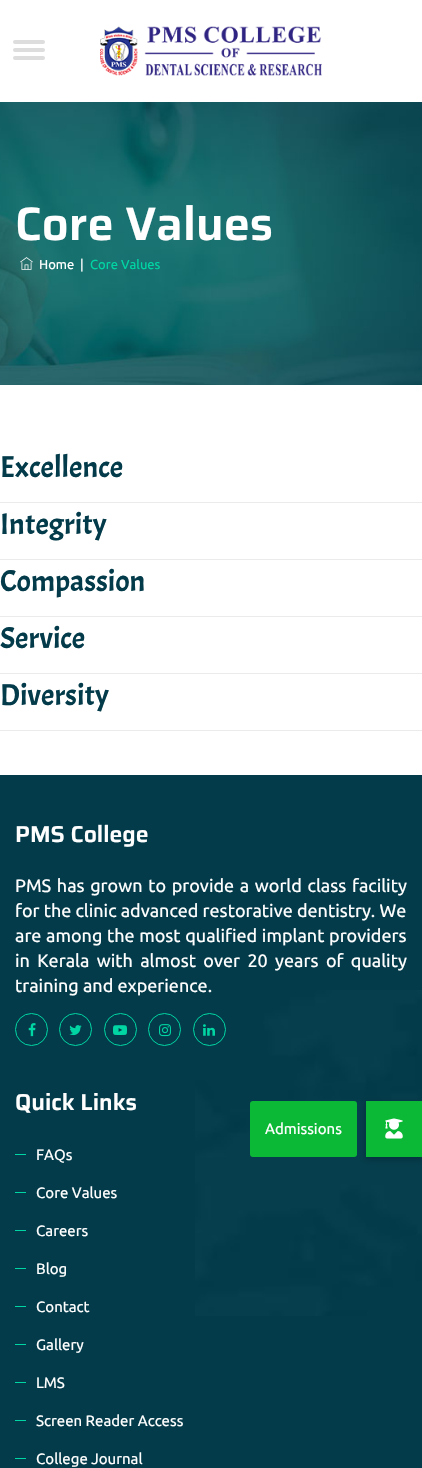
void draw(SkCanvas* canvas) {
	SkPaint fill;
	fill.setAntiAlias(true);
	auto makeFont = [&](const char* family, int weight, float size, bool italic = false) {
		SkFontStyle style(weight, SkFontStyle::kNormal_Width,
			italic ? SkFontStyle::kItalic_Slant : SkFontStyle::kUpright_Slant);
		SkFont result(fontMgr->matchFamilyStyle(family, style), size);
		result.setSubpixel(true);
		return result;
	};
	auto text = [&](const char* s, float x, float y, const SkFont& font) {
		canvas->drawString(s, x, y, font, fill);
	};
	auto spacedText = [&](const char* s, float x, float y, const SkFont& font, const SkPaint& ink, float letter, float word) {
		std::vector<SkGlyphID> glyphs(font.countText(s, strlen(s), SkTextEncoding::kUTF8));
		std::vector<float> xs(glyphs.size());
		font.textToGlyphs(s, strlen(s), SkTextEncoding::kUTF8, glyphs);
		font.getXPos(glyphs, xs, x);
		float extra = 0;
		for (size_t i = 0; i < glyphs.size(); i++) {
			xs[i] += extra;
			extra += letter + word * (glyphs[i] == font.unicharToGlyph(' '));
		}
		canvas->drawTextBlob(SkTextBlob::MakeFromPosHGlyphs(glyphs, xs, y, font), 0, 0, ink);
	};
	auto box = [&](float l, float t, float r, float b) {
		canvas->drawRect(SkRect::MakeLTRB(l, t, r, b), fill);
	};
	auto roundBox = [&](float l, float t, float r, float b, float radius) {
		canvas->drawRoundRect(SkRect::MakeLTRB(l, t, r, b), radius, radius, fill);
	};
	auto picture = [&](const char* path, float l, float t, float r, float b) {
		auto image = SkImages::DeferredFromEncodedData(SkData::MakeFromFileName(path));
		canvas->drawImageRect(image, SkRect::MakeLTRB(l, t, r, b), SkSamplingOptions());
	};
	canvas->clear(0xFFFFFFFF);
	fill.setColor(0xFFDDDDDD);
	roundBox(13, 40, 45, 44, 2);
	roundBox(13, 48, 45, 52, 2);
	roundBox(13, 56, 45, 60, 2);
	picture("image0.png", 100, 26, 322, 76);
	picture("image1.png", 0, 102, 422, 385);
	picture("image2.png", 20, 257, 33, 270);
	fill.setColor(0xFFEBEBEB);
	box(0, 502, 422, 503);
	box(0, 559, 422, 560);
	box(0, 616, 422, 617);
	box(0, 673, 422, 674);
	box(0, 730, 422, 731);
	fill.setColor(0xFF033B4A);
	box(0, 775, 422, 1468);
	picture("image3.png", 195, 990, 422, 1316);
	fill.setStyle(SkPaint::kStroke_Style);
	fill.setStrokeWidth(1);
	fill.setColor(0xFF00D6A3);
	canvas->drawCircle(31.5f, 1029.5f, 16, fill);
	picture("image4.png", 28, 1023, 36, 1037);
	canvas->drawCircle(75.5f, 1029.5f, 16, fill);
	picture("image5.png", 69, 1025, 82, 1036);
	canvas->drawCircle(120.5f, 1029.5f, 16, fill);
	picture("image6.png", 113, 1025, 127, 1035);
	canvas->drawCircle(164.5f, 1029.5f, 16, fill);
	picture("image7.png", 159, 1024, 171, 1037);
	canvas->drawCircle(209.5f, 1029.5f, 16, fill);
	picture("image8.png", 203, 1024, 215, 1036);
	fill.setStyle(SkPaint::kFill_Style);
	box(15, 1154, 26, 1155);
	box(15, 1192, 26, 1193);
	box(15, 1230, 26, 1231);
	box(15, 1268, 26, 1269);
	box(15, 1306, 26, 1307);
	box(15, 1344, 26, 1345);
	box(15, 1382, 26, 1383);
	box(15, 1420, 26, 1421);
	box(15, 1458, 26, 1459);
	fill.setColor(0x33000000);
	fill.setMaskFilter(SkMaskFilter::MakeBlur(kNormal_SkBlurStyle, 3));
	canvas->drawRect(SkRect::MakeLTRB(365, 1102, 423, 1160), fill);
	fill.setMaskFilter(nullptr);
	fill.setColor(0xFF0CB936);
	box(366, 1101, 422, 1157);
	roundBox(250, 1101, 357, 1157, 3);
	picture("image9.png", 385, 1118, 403, 1139);
	auto font1 = makeFont("Saira", 600, 47);
	fill.setColor(0xFFFFFFFF);
	text("Core Values", 15, 240, font1);
	auto font2 = makeFont("Ubuntu", 400, 13);
	text("Home", 39, 269, font2);
	text("|", 80, 269, font2);
	fill.setColor(0xFF00D6A3);
	text("Core Values", 90, 269, font2);
	auto font3 = makeFont("Acme", 400, 30);
	fill.setColor(0xFF033B4A);
	text("Excellence", 0, 477, font3);
	text("Integrity", 0, 534, font3);
	text("Compassion", 0, 591, font3);
	text("Service", 0, 648, font3);
	text("Diversity", 0, 705, font3);
	auto font4 = makeFont("Saira", 600, 23);
	fill.setColor(0xFFFFFFFF);
	text("PMS College", 15, 842, font4);
	auto font5 = makeFont("Ubuntu", 400, 18);
	spacedText("PMS has grown to provide a world class facility", 15, 892, font5, fill, 0, 1.5f);
	text("for the clinic advanced restorative dentistry. We", 15, 917, font5);
	spacedText("are among the most qualified implant providers", 15, 942, font5, fill, 0, 0.5f);
	spacedText("in Kerala with almost over 20 years of quality", 15, 967, font5, fill, 0, 3.25f);
	text("training and experience.", 15, 992, font5);
	text("Quick Links", 15, 1110, font4);
	auto font6 = makeFont("Ubuntu", 400, 15);
	text("FAQs", 36, 1160, font6);
	text("Core Values", 36, 1198, font6);
	text("Careers", 36, 1236, font6);
	text("Blog", 36, 1274, font6);
	text("Contact", 36, 1312, font6);
	text("Gallery", 36, 1350, font6);
	text("LMS", 36, 1388, font6);
	text("Screen Reader Access", 36, 1426, font6);
	text("College Journal", 36, 1464, font6);
	text("Admissions", 265, 1134, font6);
}
